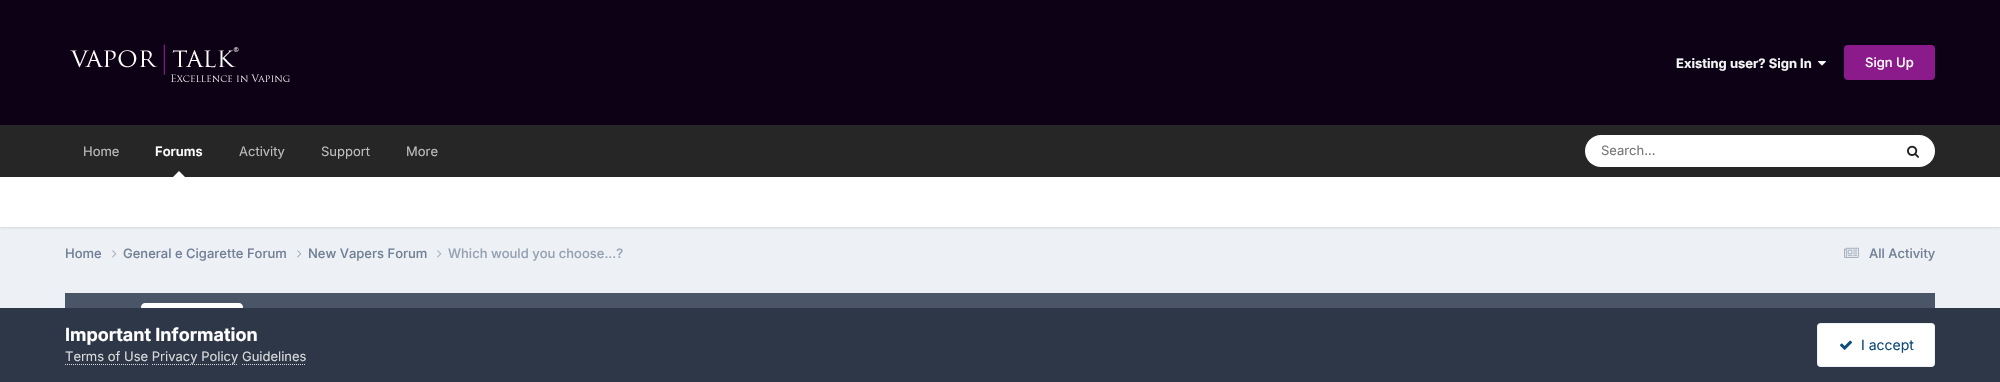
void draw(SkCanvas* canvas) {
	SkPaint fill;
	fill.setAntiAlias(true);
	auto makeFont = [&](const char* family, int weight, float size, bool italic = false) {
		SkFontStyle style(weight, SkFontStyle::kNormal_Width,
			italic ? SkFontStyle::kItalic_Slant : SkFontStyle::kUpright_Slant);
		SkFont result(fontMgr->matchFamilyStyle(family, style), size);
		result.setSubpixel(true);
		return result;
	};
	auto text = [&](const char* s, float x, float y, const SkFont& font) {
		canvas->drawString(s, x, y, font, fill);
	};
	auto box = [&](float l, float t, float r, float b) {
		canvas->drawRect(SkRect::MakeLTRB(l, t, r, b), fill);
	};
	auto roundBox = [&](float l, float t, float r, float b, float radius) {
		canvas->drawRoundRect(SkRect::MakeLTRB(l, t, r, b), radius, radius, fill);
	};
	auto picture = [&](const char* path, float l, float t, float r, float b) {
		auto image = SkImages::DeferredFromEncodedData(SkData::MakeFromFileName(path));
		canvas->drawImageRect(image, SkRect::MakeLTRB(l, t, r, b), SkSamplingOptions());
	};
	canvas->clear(0xFFEDF0F4);
	fill.setColor(0xFF0C0115);
	box(0, 0, 2000, 125);
	picture("image0.png", 70, 44, 290, 82);
	picture("image1.png", 1818, 61, 1826, 66);
	fill.setColor(0xFF8B1A8B);
	roundBox(1844, 45, 1935, 80, 4);
	fill.setColor(0xFF262626);
	box(0, 125, 2000, 177);
	fill.setColor(0x1A000000);
	fill.setMaskFilter(SkMaskFilter::MakeBlur(kNormal_SkBlurStyle, 1));
	canvas->drawRect(SkRect::MakeLTRB(0, 178, 2000, 228), fill);
	fill.setMaskFilter(nullptr);
	fill.setColor(0xFFFFFFFF);
	canvas->drawPath(SkPathBuilder().moveTo(185, 177).lineTo(173, 177).lineTo(179, 171).close().detach(), fill);
	roundBox(1585, 135, 1935, 167, 16);
	picture("image2.png", 1907, 145, 1919, 158);
	box(0, 177, 2000, 227);
	picture("image3.png", 112, 250, 117, 258);
	picture("image3.png", 297, 250, 302, 258);
	picture("image3.png", 437, 250, 442, 258);
	picture("image4.png", 1844, 247, 1859, 258);
	fill.setColor(0xFF4A5568);
	box(65, 293, 1935, 308);
	fill.setColor(0xFFFFFFFF);
	canvas->drawPath(SkPathBuilder().moveTo(145, 303).lineTo(239, 303).cubicTo(241, 303, 243, 305, 243, 307).lineTo(243, 345).lineTo(141, 345).lineTo(141, 307).cubicTo(141, 305, 143, 303, 145, 303).close().detach(), fill);
	fill.setColor(0xFF2D3748);
	box(0, 308, 2000, 382);
	fill.setStyle(SkPaint::kStroke_Style);
	fill.setStrokeWidth(1);
	fill.setColor(0xFFDADADA);
	fill.setPathEffect(SkDashPathEffect::Make({{1, 1}}, 0));
	canvas->drawPath(SkPathBuilder().moveTo(65, 364.5f).lineTo(148, 364.5f).detach(), fill);
	fill.setPathEffect(nullptr);
	fill.setPathEffect(SkDashPathEffect::Make({{1, 1}}, 0));
	canvas->drawPath(SkPathBuilder().moveTo(152, 364.5f).lineTo(238, 364.5f).detach(), fill);
	fill.setPathEffect(nullptr);
	fill.setPathEffect(SkDashPathEffect::Make({{1, 1}}, 0));
	canvas->drawPath(SkPathBuilder().moveTo(242, 364.5f).lineTo(306, 364.5f).detach(), fill);
	fill.setPathEffect(nullptr);
	fill.setStyle(SkPaint::kFill_Style);
	fill.setColor(0xFFFFFFFF);
	roundBox(1817, 323, 1935, 367, 4);
	fill.setStyle(SkPaint::kStroke_Style);
	fill.setColor(0x120E4C79);
	canvas->drawRoundRect(SkRect::MakeLTRB(1817.5f, 323.5f, 1934.5f, 366.5f), 3.5f, 3.5f, fill);
	picture("image5.png", 1840, 340, 1852, 350);
	auto font1 = makeFont("Inter", 700, 13);
	fill.setStyle(SkPaint::kFill_Style);
	fill.setColor(0xFFF3F6F4);
	text("Existing user? Sign In", 1676, 68, font1);
	auto font2 = makeFont("Inter", 500, 13);
	fill.setColor(0xFFFFFFFF);
	text("Sign Up", 1865, 67, font2);
	auto font3 = makeFont("Inter", 400, 13);
	fill.setColor(0xFFBEBEBE);
	text("Home", 83, 156, font3);
	auto font4 = makeFont("Inter", 600, 13);
	fill.setColor(0xFFFFFFFF);
	text("Forums", 155, 156, font4);
	fill.setColor(0xFFBEBEBE);
	text("Activity", 239, 156, font3);
	text("Support", 321, 156, font3);
	text("More", 406, 156, font3);
	fill.setColor(0xFF757575);
	text("Search...", 1601, 155, font3);
	fill.setColor(0xFF718096);
	text("Home", 65, 258, font2);
	text("General e Cigarette Forum", 123, 258, font2);
	text("New Vapers Forum", 308, 258, font2);
	fill.setColor(0xFF96A2B2);
	text("Which would you choose...?", 448, 258, font2);
	fill.setColor(0xFF718096);
	text("All Activity", 1869, 258, font2);
	auto font5 = makeFont("Inter", 700, 18);
	fill.setColor(0xFFFFFFFF);
	text("Important Information", 65, 341, font5);
	fill.setColor(0xFFDADADA);
	text("Terms of Use Privacy Policy Guidelines", 65, 361, font3);
	auto font6 = makeFont("Inter", 400, 14);
	fill.setColor(0xFF0E4C79);
	text("I accept", 1861, 350, font6);
}
